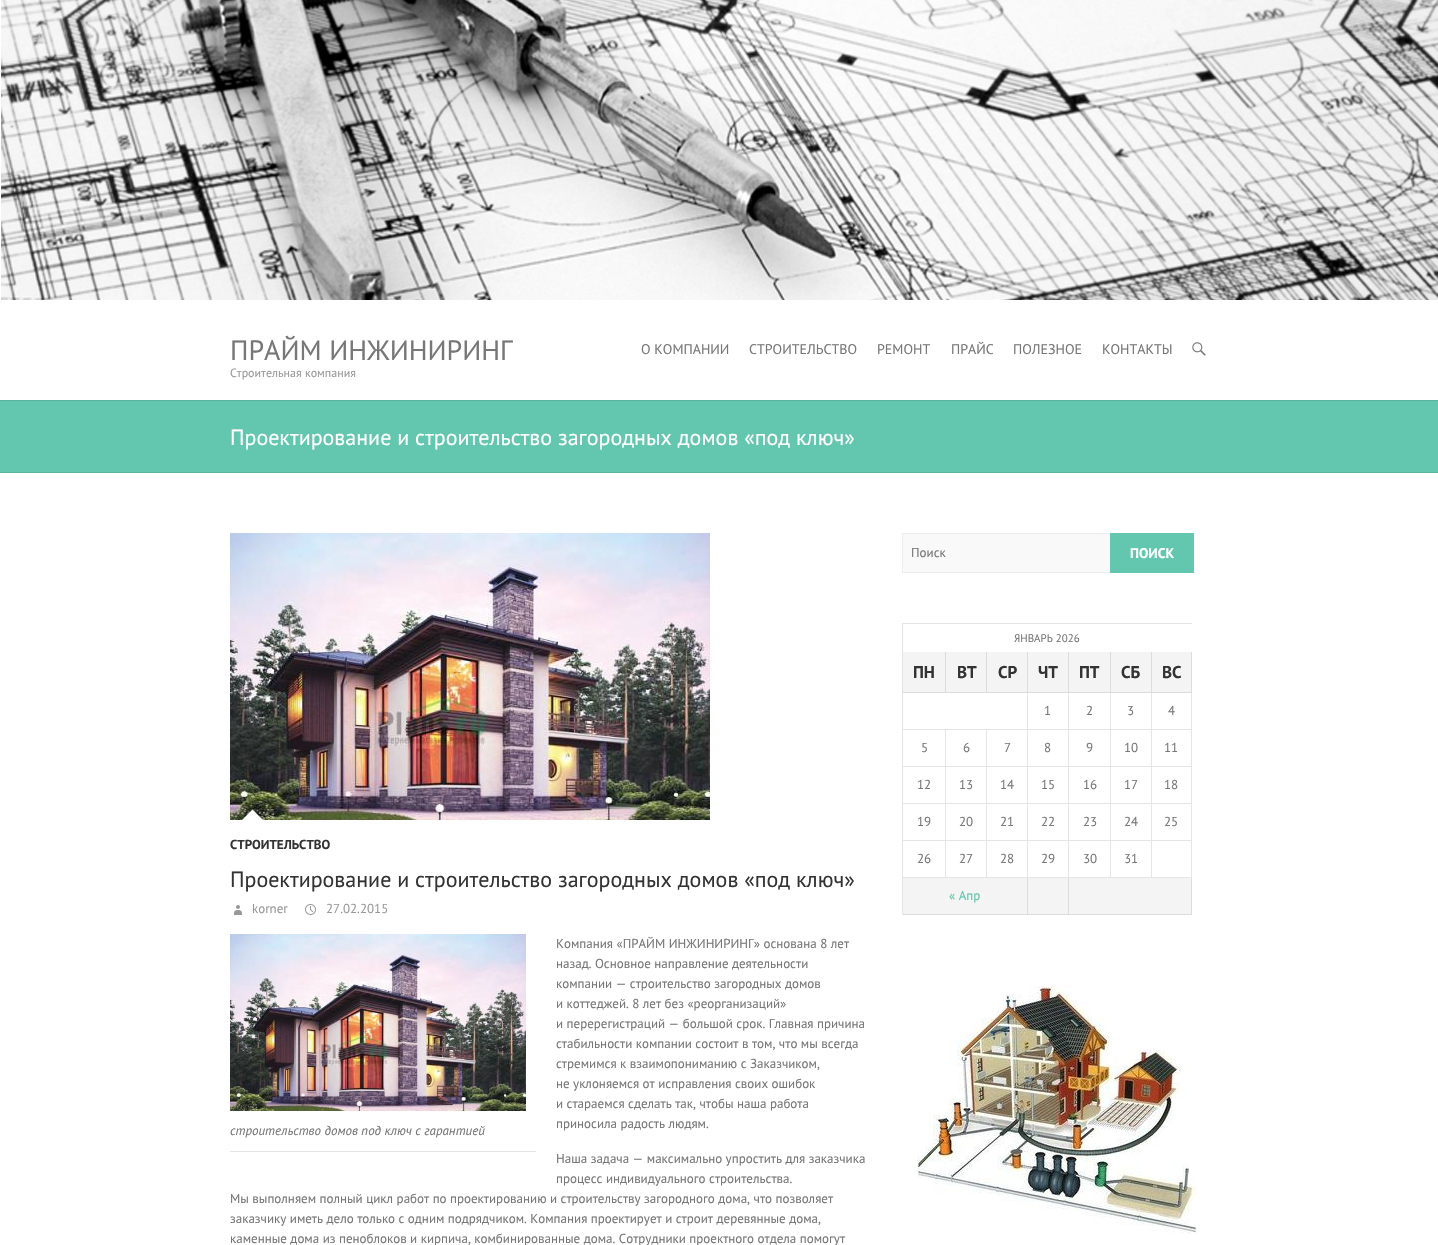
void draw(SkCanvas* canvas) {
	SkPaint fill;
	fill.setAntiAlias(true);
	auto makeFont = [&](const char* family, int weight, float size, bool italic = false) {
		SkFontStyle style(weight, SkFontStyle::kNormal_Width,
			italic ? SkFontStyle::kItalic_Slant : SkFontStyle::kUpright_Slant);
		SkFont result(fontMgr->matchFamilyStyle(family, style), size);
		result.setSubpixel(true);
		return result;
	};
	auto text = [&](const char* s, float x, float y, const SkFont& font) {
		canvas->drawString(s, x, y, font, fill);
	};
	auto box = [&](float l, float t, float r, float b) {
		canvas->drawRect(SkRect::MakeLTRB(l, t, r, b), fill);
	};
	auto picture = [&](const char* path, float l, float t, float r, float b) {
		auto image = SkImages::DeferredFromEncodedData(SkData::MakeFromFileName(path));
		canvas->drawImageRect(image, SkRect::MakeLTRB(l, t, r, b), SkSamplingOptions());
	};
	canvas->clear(0xFFFFFFFF);
	picture("image0.png", 1, 0, 1438, 300);
	picture("image1.png", 1192, 342, 1206, 356);
	fill.setColor(0xFF63C6AE);
	box(0, 401, 1438, 472);
	fill.setColor(0xFF59B29D);
	box(0, 400, 1438, 401);
	box(0, 472, 1438, 473);
	fill.setColor(0xFFF9F9F9);
	box(902, 533, 1110, 573);
	fill.setColor(0xFFEDEDED);
	canvas->drawPath(SkPathBuilder().moveTo(902, 533).lineTo(1110, 533).lineTo(1110, 534).lineTo(903, 534).close().detach(), fill);
	canvas->drawPath(SkPathBuilder().moveTo(1110, 573).lineTo(902, 573).lineTo(903, 572).lineTo(1110, 572).close().detach(), fill);
	fill.setColor(0x0D000000);
	canvas->drawPath(SkPathBuilder().moveTo(902, 573).lineTo(902, 533).lineTo(903, 534).lineTo(903, 572).close().detach(), fill);
	fill.setColor(0xFF63C6AE);
	box(1110, 533, 1194, 573);
	fill.setColor(0xFFE6E6E6);
	canvas->drawPath(SkPathBuilder().moveTo(902, 623).lineTo(1192, 623).lineTo(1192, 624).lineTo(903, 624).close().detach(), fill);
	fill.setColor(0x1A000000);
	canvas->drawPath(SkPathBuilder().moveTo(902, 915).lineTo(902, 623).lineTo(903, 624).lineTo(903, 915).close().detach(), fill);
	fill.setColor(0xFFF4F4F4);
	box(903, 652, 1192, 693);
	fill.setColor(0xFFDCDCDC);
	canvas->drawPath(SkPathBuilder().moveTo(946, 652).lineTo(946, 693).lineTo(945, 692).lineTo(945, 652).close().detach(), fill);
	fill.setColor(0x1A000000);
	canvas->drawPath(SkPathBuilder().moveTo(946, 693).lineTo(903, 693).lineTo(903, 692).lineTo(945, 692).close().detach(), fill);
	fill.setColor(0xFFDCDCDC);
	canvas->drawPath(SkPathBuilder().moveTo(987, 652).lineTo(987, 693).lineTo(986, 692).lineTo(986, 652).close().detach(), fill);
	fill.setColor(0x1A000000);
	canvas->drawPath(SkPathBuilder().moveTo(987, 693).lineTo(946, 693).lineTo(946, 692).lineTo(986, 692).close().detach(), fill);
	fill.setColor(0xFFDCDCDC);
	canvas->drawPath(SkPathBuilder().moveTo(1028, 652).lineTo(1028, 693).lineTo(1027, 692).lineTo(1027, 652).close().detach(), fill);
	fill.setColor(0x1A000000);
	canvas->drawPath(SkPathBuilder().moveTo(1028, 693).lineTo(987, 693).lineTo(987, 692).lineTo(1027, 692).close().detach(), fill);
	fill.setColor(0xFFDCDCDC);
	canvas->drawPath(SkPathBuilder().moveTo(1069, 652).lineTo(1069, 693).lineTo(1068, 692).lineTo(1068, 652).close().detach(), fill);
	fill.setColor(0x1A000000);
	canvas->drawPath(SkPathBuilder().moveTo(1069, 693).lineTo(1028, 693).lineTo(1028, 692).lineTo(1068, 692).close().detach(), fill);
	fill.setColor(0xFFDCDCDC);
	canvas->drawPath(SkPathBuilder().moveTo(1111, 652).lineTo(1111, 693).lineTo(1110, 692).lineTo(1110, 652).close().detach(), fill);
	fill.setColor(0x1A000000);
	canvas->drawPath(SkPathBuilder().moveTo(1111, 693).lineTo(1069, 693).lineTo(1069, 692).lineTo(1110, 692).close().detach(), fill);
	fill.setColor(0xFFDCDCDC);
	canvas->drawPath(SkPathBuilder().moveTo(1152, 652).lineTo(1152, 693).lineTo(1151, 692).lineTo(1151, 652).close().detach(), fill);
	fill.setColor(0x1A000000);
	canvas->drawPath(SkPathBuilder().moveTo(1152, 693).lineTo(1111, 693).lineTo(1111, 692).lineTo(1151, 692).close().detach(), fill);
	fill.setColor(0xFFDCDCDC);
	canvas->drawPath(SkPathBuilder().moveTo(1192, 652).lineTo(1192, 693).lineTo(1191, 692).lineTo(1191, 652).close().detach(), fill);
	fill.setColor(0x1A000000);
	canvas->drawPath(SkPathBuilder().moveTo(1192, 693).lineTo(1152, 693).lineTo(1152, 692).lineTo(1191, 692).close().detach(), fill);
	fill.setColor(0xFFE6E6E6);
	canvas->drawPath(SkPathBuilder().moveTo(1028, 693).lineTo(1028, 730).lineTo(1027, 729).lineTo(1027, 693).close().detach(), fill);
	fill.setColor(0x1A000000);
	canvas->drawPath(SkPathBuilder().moveTo(1028, 730).lineTo(903, 730).lineTo(903, 729).lineTo(1027, 729).close().detach(), fill);
	fill.setColor(0xFFE6E6E6);
	canvas->drawPath(SkPathBuilder().moveTo(1069, 693).lineTo(1069, 730).lineTo(1068, 729).lineTo(1068, 693).close().detach(), fill);
	fill.setColor(0x1A000000);
	canvas->drawPath(SkPathBuilder().moveTo(1069, 730).lineTo(1028, 730).lineTo(1028, 729).lineTo(1068, 729).close().detach(), fill);
	fill.setColor(0xFFE6E6E6);
	canvas->drawPath(SkPathBuilder().moveTo(1111, 693).lineTo(1111, 730).lineTo(1110, 729).lineTo(1110, 693).close().detach(), fill);
	fill.setColor(0x1A000000);
	canvas->drawPath(SkPathBuilder().moveTo(1111, 730).lineTo(1069, 730).lineTo(1069, 729).lineTo(1110, 729).close().detach(), fill);
	fill.setColor(0xFFE6E6E6);
	canvas->drawPath(SkPathBuilder().moveTo(1152, 693).lineTo(1152, 730).lineTo(1151, 729).lineTo(1151, 693).close().detach(), fill);
	fill.setColor(0x1A000000);
	canvas->drawPath(SkPathBuilder().moveTo(1152, 730).lineTo(1111, 730).lineTo(1111, 729).lineTo(1151, 729).close().detach(), fill);
	fill.setColor(0xFFE6E6E6);
	canvas->drawPath(SkPathBuilder().moveTo(1192, 693).lineTo(1192, 730).lineTo(1191, 729).lineTo(1191, 693).close().detach(), fill);
	fill.setColor(0x1A000000);
	canvas->drawPath(SkPathBuilder().moveTo(1192, 730).lineTo(1152, 730).lineTo(1152, 729).lineTo(1191, 729).close().detach(), fill);
	fill.setColor(0xFFE6E6E6);
	canvas->drawPath(SkPathBuilder().moveTo(946, 730).lineTo(946, 767).lineTo(945, 766).lineTo(945, 730).close().detach(), fill);
	fill.setColor(0x1A000000);
	canvas->drawPath(SkPathBuilder().moveTo(946, 767).lineTo(903, 767).lineTo(903, 766).lineTo(945, 766).close().detach(), fill);
	fill.setColor(0xFFE6E6E6);
	canvas->drawPath(SkPathBuilder().moveTo(987, 730).lineTo(987, 767).lineTo(986, 766).lineTo(986, 730).close().detach(), fill);
	fill.setColor(0x1A000000);
	canvas->drawPath(SkPathBuilder().moveTo(987, 767).lineTo(946, 767).lineTo(946, 766).lineTo(986, 766).close().detach(), fill);
	fill.setColor(0xFFE6E6E6);
	canvas->drawPath(SkPathBuilder().moveTo(1028, 730).lineTo(1028, 767).lineTo(1027, 766).lineTo(1027, 730).close().detach(), fill);
	fill.setColor(0x1A000000);
	canvas->drawPath(SkPathBuilder().moveTo(1028, 767).lineTo(987, 767).lineTo(987, 766).lineTo(1027, 766).close().detach(), fill);
	fill.setColor(0xFFE6E6E6);
	canvas->drawPath(SkPathBuilder().moveTo(1069, 730).lineTo(1069, 767).lineTo(1068, 766).lineTo(1068, 730).close().detach(), fill);
	fill.setColor(0x1A000000);
	canvas->drawPath(SkPathBuilder().moveTo(1069, 767).lineTo(1028, 767).lineTo(1028, 766).lineTo(1068, 766).close().detach(), fill);
	fill.setColor(0xFFE6E6E6);
	canvas->drawPath(SkPathBuilder().moveTo(1111, 730).lineTo(1111, 767).lineTo(1110, 766).lineTo(1110, 730).close().detach(), fill);
	fill.setColor(0x1A000000);
	canvas->drawPath(SkPathBuilder().moveTo(1111, 767).lineTo(1069, 767).lineTo(1069, 766).lineTo(1110, 766).close().detach(), fill);
	fill.setColor(0xFFE6E6E6);
	canvas->drawPath(SkPathBuilder().moveTo(1152, 730).lineTo(1152, 767).lineTo(1151, 766).lineTo(1151, 730).close().detach(), fill);
	fill.setColor(0x1A000000);
	canvas->drawPath(SkPathBuilder().moveTo(1152, 767).lineTo(1111, 767).lineTo(1111, 766).lineTo(1151, 766).close().detach(), fill);
	fill.setColor(0xFFE6E6E6);
	canvas->drawPath(SkPathBuilder().moveTo(1192, 730).lineTo(1192, 767).lineTo(1191, 766).lineTo(1191, 730).close().detach(), fill);
	fill.setColor(0x1A000000);
	canvas->drawPath(SkPathBuilder().moveTo(1192, 767).lineTo(1152, 767).lineTo(1152, 766).lineTo(1191, 766).close().detach(), fill);
	fill.setColor(0xFFE6E6E6);
	canvas->drawPath(SkPathBuilder().moveTo(946, 767).lineTo(946, 804).lineTo(945, 803).lineTo(945, 767).close().detach(), fill);
	fill.setColor(0x1A000000);
	canvas->drawPath(SkPathBuilder().moveTo(946, 804).lineTo(903, 804).lineTo(903, 803).lineTo(945, 803).close().detach(), fill);
	fill.setColor(0xFFE6E6E6);
	canvas->drawPath(SkPathBuilder().moveTo(987, 767).lineTo(987, 804).lineTo(986, 803).lineTo(986, 767).close().detach(), fill);
	fill.setColor(0x1A000000);
	canvas->drawPath(SkPathBuilder().moveTo(987, 804).lineTo(946, 804).lineTo(946, 803).lineTo(986, 803).close().detach(), fill);
	fill.setColor(0xFFE6E6E6);
	canvas->drawPath(SkPathBuilder().moveTo(1028, 767).lineTo(1028, 804).lineTo(1027, 803).lineTo(1027, 767).close().detach(), fill);
	fill.setColor(0x1A000000);
	canvas->drawPath(SkPathBuilder().moveTo(1028, 804).lineTo(987, 804).lineTo(987, 803).lineTo(1027, 803).close().detach(), fill);
	fill.setColor(0xFFE6E6E6);
	canvas->drawPath(SkPathBuilder().moveTo(1069, 767).lineTo(1069, 804).lineTo(1068, 803).lineTo(1068, 767).close().detach(), fill);
	fill.setColor(0x1A000000);
	canvas->drawPath(SkPathBuilder().moveTo(1069, 804).lineTo(1028, 804).lineTo(1028, 803).lineTo(1068, 803).close().detach(), fill);
	fill.setColor(0xFFE6E6E6);
	canvas->drawPath(SkPathBuilder().moveTo(1111, 767).lineTo(1111, 804).lineTo(1110, 803).lineTo(1110, 767).close().detach(), fill);
	fill.setColor(0x1A000000);
	canvas->drawPath(SkPathBuilder().moveTo(1111, 804).lineTo(1069, 804).lineTo(1069, 803).lineTo(1110, 803).close().detach(), fill);
	fill.setColor(0xFFE6E6E6);
	canvas->drawPath(SkPathBuilder().moveTo(1152, 767).lineTo(1152, 804).lineTo(1151, 803).lineTo(1151, 767).close().detach(), fill);
	fill.setColor(0x1A000000);
	canvas->drawPath(SkPathBuilder().moveTo(1152, 804).lineTo(1111, 804).lineTo(1111, 803).lineTo(1151, 803).close().detach(), fill);
	fill.setColor(0xFFE6E6E6);
	canvas->drawPath(SkPathBuilder().moveTo(1192, 767).lineTo(1192, 804).lineTo(1191, 803).lineTo(1191, 767).close().detach(), fill);
	fill.setColor(0x1A000000);
	canvas->drawPath(SkPathBuilder().moveTo(1192, 804).lineTo(1152, 804).lineTo(1152, 803).lineTo(1191, 803).close().detach(), fill);
	fill.setColor(0xFFE6E6E6);
	canvas->drawPath(SkPathBuilder().moveTo(946, 804).lineTo(946, 841).lineTo(945, 840).lineTo(945, 804).close().detach(), fill);
	fill.setColor(0x1A000000);
	canvas->drawPath(SkPathBuilder().moveTo(946, 841).lineTo(903, 841).lineTo(903, 840).lineTo(945, 840).close().detach(), fill);
	fill.setColor(0xFFE6E6E6);
	canvas->drawPath(SkPathBuilder().moveTo(987, 804).lineTo(987, 841).lineTo(986, 840).lineTo(986, 804).close().detach(), fill);
	fill.setColor(0x1A000000);
	canvas->drawPath(SkPathBuilder().moveTo(987, 841).lineTo(946, 841).lineTo(946, 840).lineTo(986, 840).close().detach(), fill);
	fill.setColor(0xFFE6E6E6);
	canvas->drawPath(SkPathBuilder().moveTo(1028, 804).lineTo(1028, 841).lineTo(1027, 840).lineTo(1027, 804).close().detach(), fill);
	fill.setColor(0x1A000000);
	canvas->drawPath(SkPathBuilder().moveTo(1028, 841).lineTo(987, 841).lineTo(987, 840).lineTo(1027, 840).close().detach(), fill);
	fill.setColor(0xFFE6E6E6);
	canvas->drawPath(SkPathBuilder().moveTo(1069, 804).lineTo(1069, 841).lineTo(1068, 840).lineTo(1068, 804).close().detach(), fill);
	fill.setColor(0x1A000000);
	canvas->drawPath(SkPathBuilder().moveTo(1069, 841).lineTo(1028, 841).lineTo(1028, 840).lineTo(1068, 840).close().detach(), fill);
	fill.setColor(0xFFE6E6E6);
	canvas->drawPath(SkPathBuilder().moveTo(1111, 804).lineTo(1111, 841).lineTo(1110, 840).lineTo(1110, 804).close().detach(), fill);
	fill.setColor(0x1A000000);
	canvas->drawPath(SkPathBuilder().moveTo(1111, 841).lineTo(1069, 841).lineTo(1069, 840).lineTo(1110, 840).close().detach(), fill);
	fill.setColor(0xFFE6E6E6);
	canvas->drawPath(SkPathBuilder().moveTo(1152, 804).lineTo(1152, 841).lineTo(1151, 840).lineTo(1151, 804).close().detach(), fill);
	fill.setColor(0x1A000000);
	canvas->drawPath(SkPathBuilder().moveTo(1152, 841).lineTo(1111, 841).lineTo(1111, 840).lineTo(1151, 840).close().detach(), fill);
	fill.setColor(0xFFE6E6E6);
	canvas->drawPath(SkPathBuilder().moveTo(1192, 804).lineTo(1192, 841).lineTo(1191, 840).lineTo(1191, 804).close().detach(), fill);
	fill.setColor(0x1A000000);
	canvas->drawPath(SkPathBuilder().moveTo(1192, 841).lineTo(1152, 841).lineTo(1152, 840).lineTo(1191, 840).close().detach(), fill);
	fill.setColor(0xFFE6E6E6);
	canvas->drawPath(SkPathBuilder().moveTo(946, 841).lineTo(946, 878).lineTo(945, 877).lineTo(945, 841).close().detach(), fill);
	fill.setColor(0x1A000000);
	canvas->drawPath(SkPathBuilder().moveTo(946, 878).lineTo(903, 878).lineTo(903, 877).lineTo(945, 877).close().detach(), fill);
	fill.setColor(0xFFE6E6E6);
	canvas->drawPath(SkPathBuilder().moveTo(987, 841).lineTo(987, 878).lineTo(986, 877).lineTo(986, 841).close().detach(), fill);
	fill.setColor(0x1A000000);
	canvas->drawPath(SkPathBuilder().moveTo(987, 878).lineTo(946, 878).lineTo(946, 877).lineTo(986, 877).close().detach(), fill);
	fill.setColor(0xFFE6E6E6);
	canvas->drawPath(SkPathBuilder().moveTo(1028, 841).lineTo(1028, 878).lineTo(1027, 877).lineTo(1027, 841).close().detach(), fill);
	fill.setColor(0x1A000000);
	canvas->drawPath(SkPathBuilder().moveTo(1028, 878).lineTo(987, 878).lineTo(987, 877).lineTo(1027, 877).close().detach(), fill);
	fill.setColor(0xFFE6E6E6);
	canvas->drawPath(SkPathBuilder().moveTo(1069, 841).lineTo(1069, 878).lineTo(1068, 877).lineTo(1068, 841).close().detach(), fill);
	fill.setColor(0x1A000000);
	canvas->drawPath(SkPathBuilder().moveTo(1069, 878).lineTo(1028, 878).lineTo(1028, 877).lineTo(1068, 877).close().detach(), fill);
	fill.setColor(0xFFE6E6E6);
	canvas->drawPath(SkPathBuilder().moveTo(1111, 841).lineTo(1111, 878).lineTo(1110, 877).lineTo(1110, 841).close().detach(), fill);
	fill.setColor(0x1A000000);
	canvas->drawPath(SkPathBuilder().moveTo(1111, 878).lineTo(1069, 878).lineTo(1069, 877).lineTo(1110, 877).close().detach(), fill);
	fill.setColor(0xFFE6E6E6);
	canvas->drawPath(SkPathBuilder().moveTo(1152, 841).lineTo(1152, 878).lineTo(1151, 877).lineTo(1151, 841).close().detach(), fill);
	fill.setColor(0x1A000000);
	canvas->drawPath(SkPathBuilder().moveTo(1152, 878).lineTo(1111, 878).lineTo(1111, 877).lineTo(1151, 877).close().detach(), fill);
	fill.setColor(0xFFE6E6E6);
	canvas->drawPath(SkPathBuilder().moveTo(1192, 841).lineTo(1192, 878).lineTo(1191, 877).lineTo(1191, 841).close().detach(), fill);
	fill.setColor(0x1A000000);
	canvas->drawPath(SkPathBuilder().moveTo(1192, 878).lineTo(1152, 878).lineTo(1152, 877).lineTo(1191, 877).close().detach(), fill);
	fill.setColor(0xFFF4F4F4);
	box(903, 878, 1192, 915);
	fill.setColor(0xFFDCDCDC);
	canvas->drawPath(SkPathBuilder().moveTo(1028, 878).lineTo(1028, 915).lineTo(1027, 914).lineTo(1027, 878).close().detach(), fill);
	fill.setColor(0x1A000000);
	canvas->drawPath(SkPathBuilder().moveTo(1028, 915).lineTo(903, 915).lineTo(903, 914).lineTo(1027, 914).close().detach(), fill);
	fill.setColor(0xFFDCDCDC);
	canvas->drawPath(SkPathBuilder().moveTo(1069, 878).lineTo(1069, 915).lineTo(1068, 914).lineTo(1068, 878).close().detach(), fill);
	fill.setColor(0x1A000000);
	canvas->drawPath(SkPathBuilder().moveTo(1069, 915).lineTo(1028, 915).lineTo(1028, 914).lineTo(1068, 914).close().detach(), fill);
	fill.setColor(0xFFDCDCDC);
	canvas->drawPath(SkPathBuilder().moveTo(1192, 878).lineTo(1192, 915).lineTo(1191, 914).lineTo(1191, 878).close().detach(), fill);
	fill.setColor(0x1A000000);
	canvas->drawPath(SkPathBuilder().moveTo(1192, 915).lineTo(1069, 915).lineTo(1069, 914).lineTo(1191, 914).close().detach(), fill);
	picture("image2.png", 917, 986, 1197, 1234);
	picture("image3.png", 230, 533, 710, 820);
	fill.setColor(0xFFFFFFFF);
	canvas->drawPath(SkPathBuilder().moveTo(252.5f, 809.5f).lineTo(263, 820).lineTo(252.5f, 830.5f).lineTo(242, 820).close().detach(), fill);
	picture("image4.png", 234, 905, 242, 915);
	picture("image5.png", 305, 904, 316, 915);
	picture("image6.png", 230, 934, 526, 1111);
	fill.setColor(0xFFE6E6E6);
	box(230, 1151, 536, 1152);
	auto font1 = makeFont("PT Sans", 400, 28);
	fill.setColor(0xFF777777);
	text("ПРАЙМ ИНЖИНИРИНГ", 230, 360, font1);
	auto font2 = makeFont("PT Sans", 400, 12);
	fill.setColor(0xFF999999);
	text("Строительная компания", 230, 377, font2);
	auto font3 = makeFont("PT Sans", 400, 14);
	fill.setColor(0xFF777777);
	text("О КОМПАНИИ", 641, 354, font3);
	text("СТРОИТЕЛЬСТВО", 749, 354, font3);
	text("РЕМОНТ", 877, 354, font3);
	text("ПРАЙС", 951, 354, font3);
	text("ПОЛЕЗНОЕ", 1013, 354, font3);
	text("КОНТАКТЫ", 1102, 354, font3);
	auto font4 = makeFont("PT Sans", 400, 22);
	fill.setColor(0xFFFFFFFF);
	text("Проектирование и строительство загородных домов «под ключ»", 230, 445, font4);
	auto font5 = makeFont("PT Sans", 400, 13);
	fill.setColor(0xFF777777);
	text("Поиск", 911, 557, font5);
	auto font6 = makeFont("PT Sans", 700, 14);
	fill.setColor(0xFFFFFFFF);
	text("ПОИСК", 1130, 558, font6);
	auto font7 = makeFont("PT Sans", 400, 11);
	fill.setColor(0xFF777777);
	text("ЯНВАРЬ 2026", 1014, 642, font7);
	auto font8 = makeFont("PT Sans", 700, 17);
	fill.setColor(0xFF333333);
	text("ПН", 913, 678, font8);
	text("ВТ", 957, 678, font8);
	text("СР", 998, 678, font8);
	text("ЧТ", 1038, 678, font8);
	text("ПТ", 1079, 678, font8);
	text("СБ", 1121, 678, font8);
	text("ВС", 1162, 678, font8);
	fill.setColor(0xFF777777);
	text("1", 1044, 715, font5);
	text("2", 1086, 715, font5);
	text("3", 1127, 715, font5);
	text("4", 1168, 715, font5);
	text("5", 921, 752, font5);
	text("6", 963, 752, font5);
	text("7", 1004, 752, font5);
	text("8", 1044, 752, font5);
	text("9", 1086, 752, font5);
	text("10", 1124, 752, font5);
	text("11", 1164, 752, font5);
	text("12", 917, 789, font5);
	text("13", 959, 789, font5);
	text("14", 1000, 789, font5);
	text("15", 1041, 789, font5);
	text("16", 1083, 789, font5);
	text("17", 1124, 789, font5);
	text("18", 1164, 789, font5);
	text("19", 917, 826, font5);
	text("20", 959, 826, font5);
	text("21", 1000, 826, font5);
	text("22", 1041, 826, font5);
	text("23", 1083, 826, font5);
	text("24", 1124, 826, font5);
	text("25", 1164, 826, font5);
	text("26", 917, 863, font5);
	text("27", 959, 863, font5);
	text("28", 1000, 863, font5);
	text("29", 1041, 863, font5);
	text("30", 1083, 863, font5);
	text("31", 1124, 863, font5);
	fill.setColor(0xFF63C6AE);
	text("« Апр", 949, 900, font5);
	auto font9 = makeFont("PT Sans", 700, 13);
	fill.setColor(0xFF333333);
	text("СТРОИТЕЛЬСТВО", 230, 849, font9);
	text("Проектирование и строительство загородных домов «под ключ»", 230, 887, font4);
	fill.setColor(0xFF999999);
	text("korner", 252, 913, font5);
	text("27.02.2015", 326, 913, font5);
	auto font10 = makeFont("PT Sans", 400, 13, true);
	fill.setColor(0xFF777777);
	text("строительство домов под ключ с гарантией", 230, 1135, font10);
	text("Компания «ПРАЙМ ИНЖИНИРИНГ» основана 8 лет", 556, 948, font5);
	text("назад. Основное направление деятельности", 556, 968, font5);
	text("компании — строительство загородных домов", 556, 988, font5);
	text("и коттеджей. 8 лет без «реорганизаций»", 556, 1008, font5);
	text("и перерегистраций — большой срок. Главная причина", 556, 1028, font5);
	text("стабильности компании состоит в том, что мы всегда", 556, 1048, font5);
	text("стремимся к взаимопониманию с Заказчиком,", 556, 1068, font5);
	text("не уклоняемся от исправления своих ошибок", 556, 1088, font5);
	text("и стараемся сделать так, чтобы наша работа", 556, 1108, font5);
	text("приносила радость людям.", 556, 1128, font5);
	text("Наша задача — максимально упростить для заказчика", 556, 1163, font5);
	text("процесс индивидуального строительства.", 556, 1183, font5);
	text("Мы выполняем полный цикл работ по проектированию и строительству загородного дома, что позволяет", 230, 1203, font5);
	text("заказчику иметь дело только с одним подрядчиком. Компания проектирует и строит деревянные дома,", 230, 1223, font5);
	text("каменные дома из пеноблоков и кирпича, комбинированные дома. Сотрудники проектного отдела помогут", 230, 1243, font5);
}
